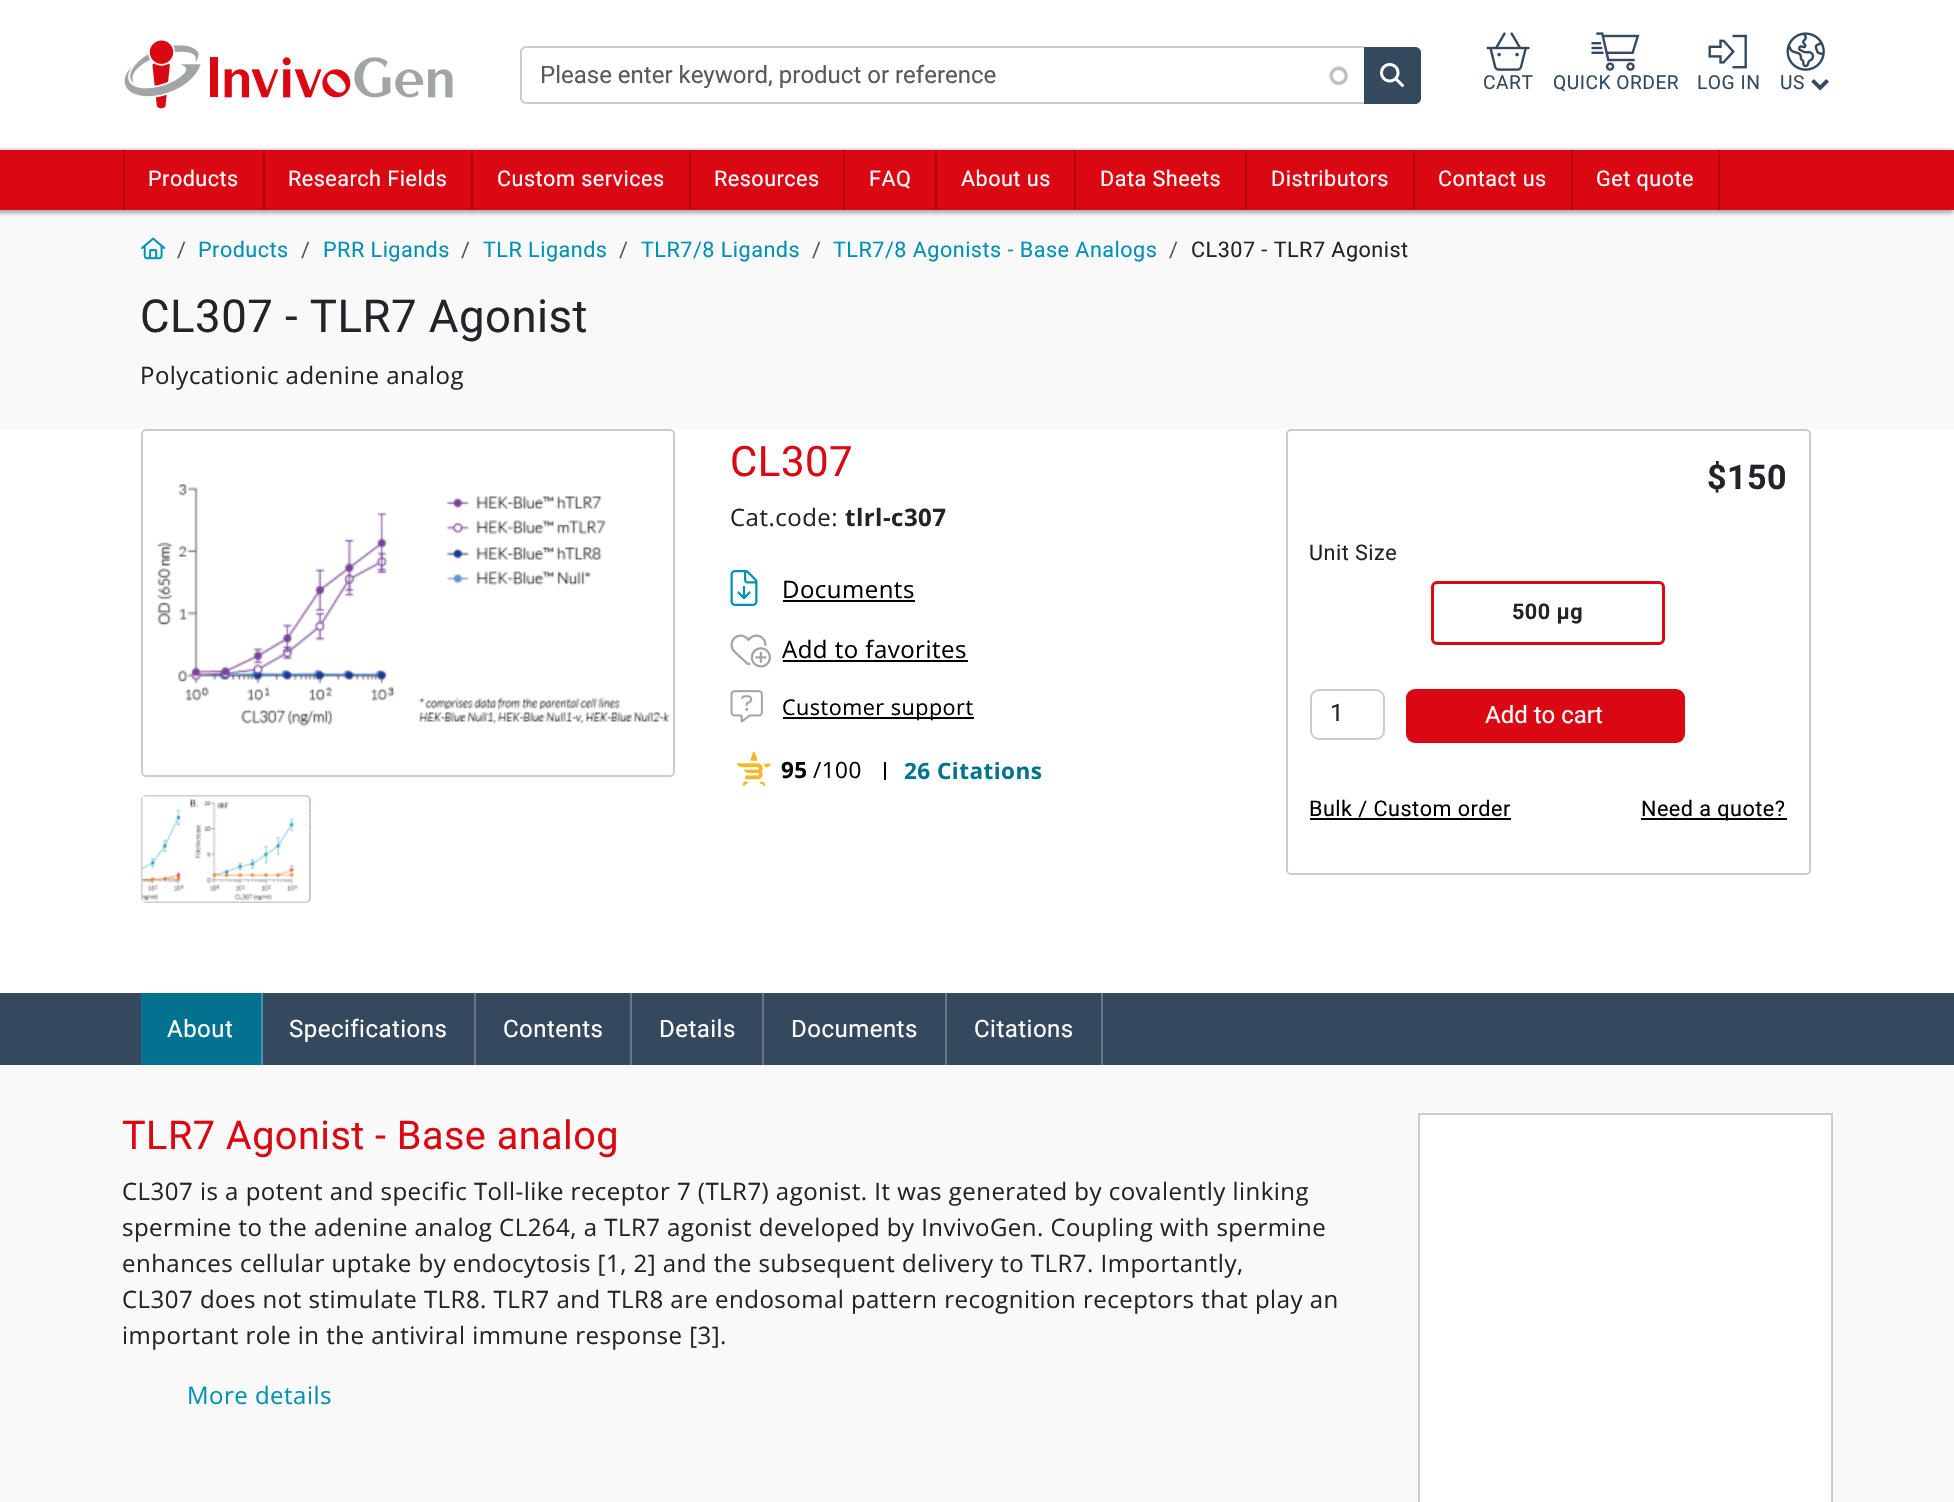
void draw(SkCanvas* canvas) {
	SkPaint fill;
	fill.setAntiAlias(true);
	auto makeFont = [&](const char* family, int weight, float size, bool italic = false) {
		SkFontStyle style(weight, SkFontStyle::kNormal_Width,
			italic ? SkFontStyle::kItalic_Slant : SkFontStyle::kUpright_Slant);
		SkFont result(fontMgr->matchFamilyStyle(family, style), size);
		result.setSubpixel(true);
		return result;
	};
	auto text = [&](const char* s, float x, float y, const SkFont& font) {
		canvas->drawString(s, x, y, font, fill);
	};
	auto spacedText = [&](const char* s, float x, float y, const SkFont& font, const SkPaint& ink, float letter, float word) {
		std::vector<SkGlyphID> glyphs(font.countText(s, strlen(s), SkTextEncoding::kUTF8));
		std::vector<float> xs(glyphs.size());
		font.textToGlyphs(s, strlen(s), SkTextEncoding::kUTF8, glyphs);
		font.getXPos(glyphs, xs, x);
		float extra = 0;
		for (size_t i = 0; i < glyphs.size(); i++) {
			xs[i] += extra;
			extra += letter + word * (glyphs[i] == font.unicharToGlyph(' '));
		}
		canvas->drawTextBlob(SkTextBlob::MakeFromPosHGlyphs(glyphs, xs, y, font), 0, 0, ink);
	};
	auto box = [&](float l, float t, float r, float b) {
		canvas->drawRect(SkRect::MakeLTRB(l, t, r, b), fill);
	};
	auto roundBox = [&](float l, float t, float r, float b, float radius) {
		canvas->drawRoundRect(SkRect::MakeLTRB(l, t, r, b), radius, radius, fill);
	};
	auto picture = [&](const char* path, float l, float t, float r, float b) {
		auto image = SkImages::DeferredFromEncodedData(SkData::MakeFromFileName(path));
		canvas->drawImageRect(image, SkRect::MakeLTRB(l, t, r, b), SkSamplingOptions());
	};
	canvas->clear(0xFFFFFFFF);
	picture("image0.png", 124, 40, 453, 109);
	picture("image1.png", 1328, 66, 1349, 86);
	fill.setColor(0xFFCCCCCC);
	canvas->drawPath(SkPathBuilder(SkPathFillType::kEvenOdd).moveTo(526, 46).lineTo(1364, 46).lineTo(1364, 104).lineTo(526, 104).cubicTo(523, 104, 520, 101, 520, 98).lineTo(520, 52).cubicTo(520, 49, 523, 46, 526, 46).close().moveTo(526, 48).lineTo(1364, 48).lineTo(1364, 102).lineTo(526, 102).cubicTo(524, 102, 522, 100, 522, 98).lineTo(522, 52).cubicTo(522, 50, 524, 48, 526, 48).close().detach(), fill);
	fill.setColor(0xFF34495E);
	canvas->drawPath(SkPathBuilder().moveTo(1364, 47).lineTo(1415, 47).cubicTo(1418.5f, 47, 1421, 49.5f, 1421, 53).lineTo(1421, 98).cubicTo(1421, 101.5f, 1418.5f, 104, 1415, 104).lineTo(1364, 104).close().detach(), fill);
	picture("image2.png", 1380, 63, 1404, 87);
	picture("image3.png", 1486, 32, 1530, 71);
	picture("image4.png", 1591, 32, 1640, 71);
	picture("image5.png", 1708, 34, 1747, 69);
	picture("image6.png", 1786, 32, 1825, 71);
	picture("image7.png", 1811, 79, 1829, 91);
	fill.setColor(0xFFF9F9F9);
	box(0, 210, 1954, 429);
	fill.setColor(0x54000000);
	fill.setMaskFilter(SkMaskFilter::MakeBlur(kNormal_SkBlurStyle, 2));
	canvas->drawRect(SkRect::MakeLTRB(-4, 150, 1953, 213), fill);
	fill.setMaskFilter(nullptr);
	fill.setColor(0xFFDA0812);
	box(0, 150, 1954, 210);
	fill.setColor(0xFFB7040C);
	box(263, 150, 265, 210);
	box(123, 150, 125, 210);
	box(471, 150, 473, 210);
	box(689, 150, 691, 210);
	box(843, 150, 845, 210);
	box(935, 150, 937, 210);
	box(1074, 150, 1076, 210);
	box(1245, 150, 1247, 210);
	box(1413, 150, 1415, 210);
	box(1571, 150, 1573, 210);
	box(1718, 150, 1720, 210);
	picture("image8.png", 141, 237, 166, 260);
	fill.setStyle(SkPaint::kStroke_Style);
	fill.setStrokeWidth(2);
	fill.setColor(0xFFCCCCCC);
	canvas->drawRoundRect(SkRect::MakeLTRB(142, 430, 674, 776), 4, 4, fill);
	picture("image9.png", 157, 484, 670, 727);
	canvas->drawRoundRect(SkRect::MakeLTRB(142, 796, 310, 902), 4, 4, fill);
	picture("image10.png", 142, 796, 308, 902);
	picture("image11.png", 730, 570, 758, 606);
	fill.setStyle(SkPaint::kFill_Style);
	fill.setColor(0xFF000000);
	box(783, 600, 915, 602);
	picture("image12.png", 730, 634, 771, 668);
	box(783, 660, 968, 662);
	picture("image13.png", 730, 690, 763, 723);
	box(783, 717, 974, 719);
	picture("image14.png", 737, 752, 771, 786);
	box(884, 762, 886, 780);
	fill.setStyle(SkPaint::kStroke_Style);
	fill.setColor(0xFFCCCCCC);
	canvas->drawRoundRect(SkRect::MakeLTRB(1287, 430, 1810, 874), 4, 4, fill);
	fill.setStrokeWidth(3);
	fill.setColor(0xFFDA0812);
	canvas->drawRoundRect(SkRect::MakeLTRB(1432.5f, 582.5f, 1663.5f, 643.5f), 4.5f, 4.5f, fill);
	fill.setStrokeWidth(2);
	fill.setColor(0xFFCCCCCC);
	canvas->drawRoundRect(SkRect::MakeLTRB(1311, 690, 1384, 739), 8, 8, fill);
	fill.setStyle(SkPaint::kFill_Style);
	fill.setColor(0xFFDA0812);
	roundBox(1406, 689, 1685, 743, 9);
	fill.setColor(0xFF000000);
	box(1310, 818, 1511, 820);
	box(1641, 818, 1787, 820);
	fill.setColor(0xFF34495E);
	box(0, 993, 1954, 1065);
	fill.setColor(0xFF017391);
	box(141, 993, 261, 1065);
	fill.setColor(0xFF4196AD);
	box(261, 993, 263, 1065);
	fill.setColor(0xFF677786);
	box(474, 993, 476, 1065);
	box(630, 993, 632, 1065);
	box(762, 993, 764, 1065);
	box(945, 993, 947, 1065);
	box(1101, 993, 1103, 1065);
	fill.setColor(0xFFF9F9F9);
	box(0, 1065, 1954, 1502);
	fill.setColor(0xFFFFFFFF);
	canvas->drawRect(SkRect::MakeLTRB(1419, 1114, 1832, 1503), fill);
	fill.setStyle(SkPaint::kStroke_Style);
	fill.setColor(0xFFCCCCCC);
	canvas->drawRect(SkRect::MakeLTRB(1419, 1114, 1832, 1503), fill);
	auto font1 = makeFont("Roboto", 400, 24);
	fill.setStyle(SkPaint::kFill_Style);
	fill.setColor(0xFF575A5D);
	text("Please enter keyword, product or reference", 540, 83, font1);
	auto font2 = makeFont("Roboto", 400, 19.25f);
	fill.setColor(0xFF34495E);
	spacedText("CART", 1483, 89, font2, fill, 0.48f, 0);
	spacedText("QUICK ORDER", 1553, 89, font2, fill, 0.48f, 0);
	spacedText("LOG IN", 1697, 89, font2, fill, 0.48f, 0);
	spacedText("US", 1780, 89, font2, fill, 0.48f, 0);
	auto font3 = makeFont("Roboto", 400, 21.6f);
	fill.setColor(0xFFFFFFFF);
	spacedText("Products", 148, 186, font3, fill, 0.48f, 0);
	spacedText("Research Fields", 288, 186, font3, fill, 0.48f, 0);
	spacedText("Custom services", 497, 186, font3, fill, 0.48f, 0);
	spacedText("Resources", 714, 186, font3, fill, 0.48f, 0);
	spacedText("FAQ", 869, 186, font3, fill, 0.48f, 0);
	spacedText("About us", 961, 186, font3, fill, 0.48f, 0);
	spacedText("Data Sheets", 1100, 186, font3, fill, 0.48f, 0);
	spacedText("Distributors", 1271, 186, font3, fill, 0.48f, 0);
	spacedText("Contact us", 1438, 186, font3, fill, 0.48f, 0);
	spacedText("Get quote", 1596, 186, font3, fill, 0.48f, 0);
	fill.setColor(0xFF575A5D);
	spacedText("/", 177, 257, font3, fill, 0.48f, 0);
	fill.setColor(0xFF0091B2);
	spacedText("Products", 198, 257, font3, fill, 0.48f, 0);
	fill.setColor(0xFF575A5D);
	spacedText("/", 301, 257, font3, fill, 0.48f, 0);
	fill.setColor(0xFF0091B2);
	spacedText("PRR Ligands", 323, 257, font3, fill, 0.48f, 0);
	fill.setColor(0xFF575A5D);
	spacedText("/", 461, 257, font3, fill, 0.48f, 0);
	fill.setColor(0xFF0091B2);
	spacedText("TLR Ligands", 483, 257, font3, fill, 0.48f, 0);
	fill.setColor(0xFF575A5D);
	spacedText("/", 619, 257, font3, fill, 0.48f, 0);
	fill.setColor(0xFF0091B2);
	spacedText("TLR7/8 Ligands", 641, 257, font3, fill, 0.48f, 0);
	fill.setColor(0xFF575A5D);
	spacedText("/", 812, 257, font3, fill, 0.48f, 0);
	fill.setColor(0xFF0091B2);
	spacedText("TLR7/8 Agonists - Base Analogs", 833, 257, font3, fill, 0.48f, 0);
	fill.setColor(0xFF575A5D);
	spacedText("/", 1169, 257, font3, fill, 0.48f, 0);
	fill.setColor(0xFF212529);
	spacedText("CL307 - TLR7 Agonist", 1191, 257, font3, fill, 0.48f, 0);
	auto font4 = makeFont("Roboto", 400, 45.5f);
	spacedText("CL307 - TLR7 Agonist", 140, 332, font4, fill, 0.48f, 0);
	auto font5 = makeFont("Open Sans", 400, 24);
	spacedText("Polycationic adenine analog", 140, 384, font5, fill, 0.48f, 0);
	auto font6 = makeFont("Roboto", 400, 42);
	fill.setColor(0xFFDA0812);
	spacedText("CL307", 730, 476, font6, fill, 0.48f, 0);
	fill.setColor(0xFF212529);
	spacedText("Cat.code:", 730, 526, font5, fill, 0.48f, 0);
	auto font7 = makeFont("Open Sans", 700, 24);
	spacedText("tlrl-c307", 845, 526, font7, fill, 0.48f, 0);
	fill.setColor(0xFF000000);
	spacedText("Documents", 782, 598, font5, fill, 0.48f, 0);
	spacedText("Add to favorites", 782, 658, font5, fill, 0.48f, 0);
	auto font8 = makeFont("Open Sans", 400, 21.6f);
	spacedText("Customer support", 782, 715, font8, fill, 0.48f, 0);
	auto font9 = makeFont("Open Sans", 700, 22.5f);
	spacedText("95", 781, 778, font9, fill, 0.48f, 0);
	auto font10 = makeFont("Open Sans", 400, 22.5f);
	spacedText("/100", 813, 778, font10, fill, 0.48f, 0);
	fill.setColor(0xFF017391);
	spacedText("26 Citations", 904, 779, font9, fill, 0.48f, 0);
	auto font11 = makeFont("Roboto", 700, 34);
	fill.setColor(0xFF212529);
	spacedText("$150", 1707, 489, font11, fill, 0.48f, 0);
	spacedText("Unit Size", 1309, 560, font3, fill, 0.48f, 0);
	auto font12 = makeFont("Roboto", 700, 21.6f);
	spacedText("500 µg", 1512, 619, font12, fill, 0.48f, 0);
	text("1", 1330, 721, font1);
	fill.setColor(0xFFFFFFFF);
	text("Add to cart", 1485, 723, font1);
	fill.setColor(0xFF000000);
	spacedText("Bulk / Custom order", 1309, 816, font3, fill, 0.48f, 0);
	spacedText("Need a quote?", 1641, 816, font3, fill, 0.48f, 0);
	fill.setColor(0xFFFFFFFF);
	spacedText("About", 167, 1037, font1, fill, 0.48f, 0);
	spacedText("Specifications", 289, 1037, font1, fill, 0.48f, 0);
	spacedText("Contents", 503, 1037, font1, fill, 0.48f, 0);
	spacedText("Details", 659, 1037, font1, fill, 0.48f, 0);
	spacedText("Documents", 791, 1037, font1, fill, 0.48f, 0);
	spacedText("Citations", 974, 1037, font1, fill, 0.48f, 0);
	auto font13 = makeFont("Roboto", 400, 39.6f);
	fill.setColor(0xFFDA0812);
	spacedText("TLR7 Agonist - Base analog", 122, 1149, font13, fill, 0.48f, 0);
	fill.setColor(0xFF212529);
	spacedText("CL307 is a potent and specific Toll-like receptor 7 (TLR7) agonist. It was generated by covalently linking", 122, 1200, font5, fill, 0.48f, 0);
	spacedText("spermine to the adenine analog CL264, a TLR7 agonist developed by InvivoGen. Coupling with spermine", 122, 1236, font5, fill, 0.48f, 0);
	spacedText("enhances cellular uptake by endocytosis [1, 2] and the subsequent delivery to TLR7. Importantly,", 122, 1272, font5, fill, 0.48f, 0);
	spacedText("CL307 does not stimulate TLR8. TLR7 and TLR8 are endosomal pattern recognition receptors that play an", 122, 1308, font5, fill, 0.48f, 0);
	spacedText("important role in the antiviral immune response [3].", 122, 1344, font5, fill, 0.48f, 0);
	fill.setColor(0xFF0091B2);
	spacedText("More details", 187, 1404, font5, fill, 0.48f, 0);
}
